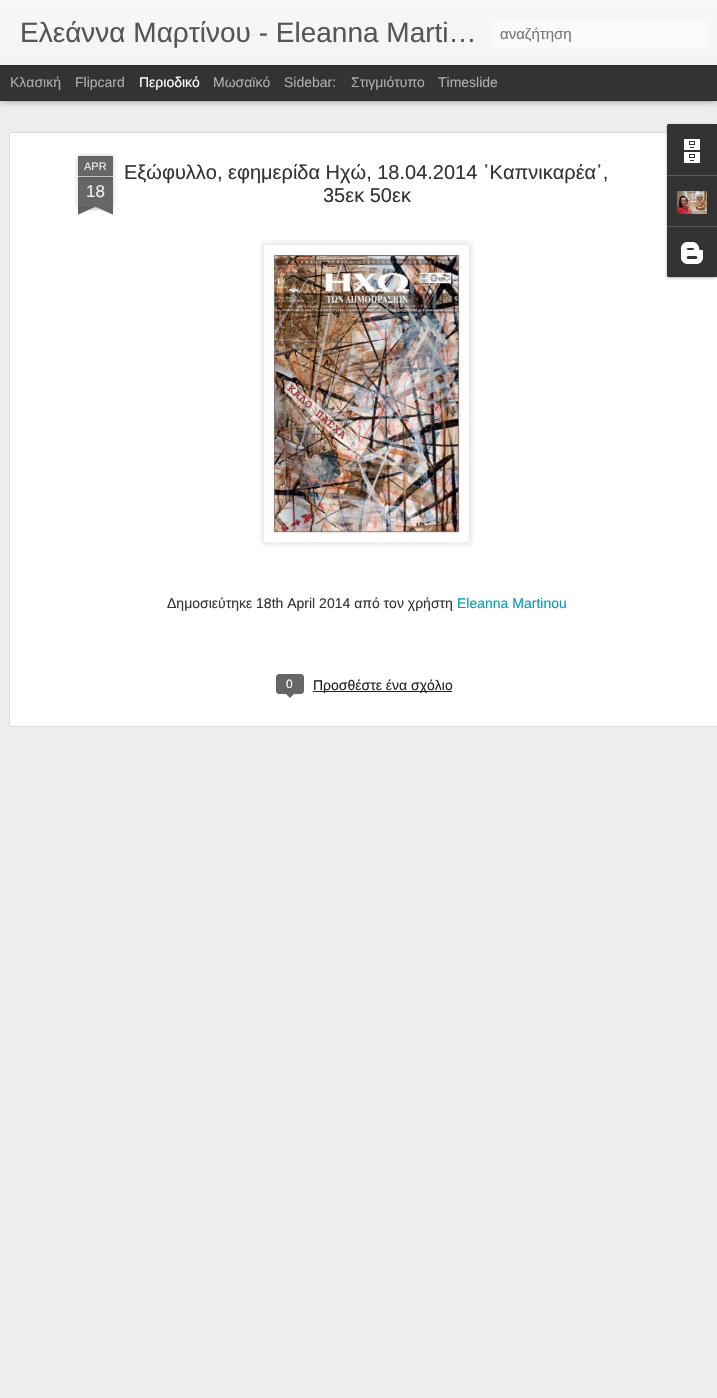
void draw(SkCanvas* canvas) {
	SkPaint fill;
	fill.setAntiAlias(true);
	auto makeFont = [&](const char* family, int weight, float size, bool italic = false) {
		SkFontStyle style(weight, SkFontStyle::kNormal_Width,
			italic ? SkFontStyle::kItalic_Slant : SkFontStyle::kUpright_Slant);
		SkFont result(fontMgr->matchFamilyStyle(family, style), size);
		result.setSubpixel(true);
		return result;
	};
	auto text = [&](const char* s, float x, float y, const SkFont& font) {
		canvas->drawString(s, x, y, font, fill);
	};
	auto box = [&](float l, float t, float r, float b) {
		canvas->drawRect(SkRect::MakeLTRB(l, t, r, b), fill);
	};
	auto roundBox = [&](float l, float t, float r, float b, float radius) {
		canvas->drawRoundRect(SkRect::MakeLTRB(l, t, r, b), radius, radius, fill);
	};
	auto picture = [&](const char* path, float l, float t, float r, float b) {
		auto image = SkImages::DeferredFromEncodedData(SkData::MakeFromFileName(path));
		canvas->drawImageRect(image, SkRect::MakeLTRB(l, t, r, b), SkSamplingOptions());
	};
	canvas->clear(0xFF333333);
	fill.setColor(0xFFEEEEEE);
	box(0, 101, 717, 1398);
	fill.setColor(0x80000000);
	fill.setMaskFilter(SkMaskFilter::MakeBlur(kNormal_SkBlurStyle, 4));
	canvas->drawRect(SkRect::MakeLTRB(0, 65, 717, 100), fill);
	fill.setMaskFilter(nullptr);
	fill.setColor(0xFF333333);
	box(0, 65, 717, 100);
	fill.setColor(0x4D000000);
	fill.setMaskFilter(SkMaskFilter::MakeBlur(kNormal_SkBlurStyle, 2.5f));
	canvas->drawRect(SkRect::MakeLTRB(0, 0, 717, 65), fill);
	fill.setMaskFilter(nullptr);
	{
		const SkColor colors[] = {0xFFF7F7F7, 0xFFF4F4F4};
		const float stops[] = {0, 1};
		const SkPoint ends[] = {{0, 0}, {0, 65}};
		fill.setShader(SkGradientShader::MakeLinear(ends, colors, stops, 2, SkTileMode::kClamp));
		fill.setAlpha(255);
	}
	box(0, 0, 717, 65);
	fill.setShader(nullptr);
	fill.setColor(0xFFFAFAFA);
	roundBox(493, 18, 707, 48, 3);
	fill.setColor(0xFFFFFFFF);
	box(8, 131, 717, 728);
	picture("image0.png", 8, 131, 717, 728);
	fill.setColor(0x33000000);
	fill.setMaskFilter(SkMaskFilter::MakeBlur(kNormal_SkBlurStyle, 2.5f));
	canvas->drawRect(SkRect::MakeLTRB(78, 177, 113, 207), fill);
	fill.setMaskFilter(nullptr);
	fill.setColor(0xFF666666);
	box(78, 177, 113, 207);
	fill.setColor(0x33000000);
	fill.setMaskFilter(SkMaskFilter::MakeBlur(kNormal_SkBlurStyle, 2.5f));
	canvas->drawRoundRect(SkRect::MakeLTRB(78, 156, 113, 177), 1, 1, fill);
	fill.setMaskFilter(nullptr);
	fill.setColor(0xFF666666);
	canvas->drawPath(SkPathBuilder().moveTo(79, 156).lineTo(112, 156).cubicTo(112.5f, 156, 113, 156.5f, 113, 157).lineTo(113, 177).lineTo(78, 177).lineTo(78, 157).cubicTo(78, 156.5f, 78.5f, 156, 79, 156).close().detach(), fill);
	fill.setColor(0xFFC2C2C2);
	box(78, 176, 113, 177);
	canvas->save();
	canvas->clipRect(SkRect::MakeLTRB(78, 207, 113, 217));
	fill.setColor(0x33000000);
	fill.setMaskFilter(SkMaskFilter::MakeBlur(kNormal_SkBlurStyle, 2.5f));
	canvas->drawRect(SkRect::MakeLTRB(69, 197, 119, 207), fill);
	fill.setMaskFilter(nullptr);
	canvas->restore();
	canvas->save();
	canvas->clipRect(SkRect::MakeLTRB(78, 207, 113, 217));
	fill.setColor(0xFF666666);
	canvas->drawPath(SkPathBuilder().moveTo(69, 208).lineTo(115, 187).lineTo(119, 196).lineTo(73, 217).close().detach(), fill);
	canvas->restore();
	canvas->save();
	canvas->clipRect(SkRect::MakeLTRB(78, 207, 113, 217));
	fill.setColor(0x33000000);
	fill.setMaskFilter(SkMaskFilter::MakeBlur(kNormal_SkBlurStyle, 2.5f));
	canvas->drawRect(SkRect::MakeLTRB(72, 197, 122, 207), fill);
	fill.setMaskFilter(nullptr);
	canvas->restore();
	canvas->save();
	canvas->clipRect(SkRect::MakeLTRB(78, 207, 113, 217));
	fill.setColor(0xFF666666);
	canvas->drawPath(SkPathBuilder().moveTo(76, 187).lineTo(122, 208).lineTo(118, 217).lineTo(72, 196).close().detach(), fill);
	canvas->restore();
	picture("image1.png", 259, 240, 474, 547);
	picture("image2.png", 273, 255, 460, 533);
	canvas->drawRoundRect(SkRect::MakeLTRB(276.5f, 674.5f, 303.5f, 693.5f), 2.5f, 2.5f, fill);
	fill.setStyle(SkPaint::kStroke_Style);
	fill.setStrokeWidth(1);
	canvas->drawRoundRect(SkRect::MakeLTRB(276.5f, 674.5f, 303.5f, 693.5f), 2.5f, 2.5f, fill);
	fill.setStyle(SkPaint::kFill_Style);
	canvas->drawPath(SkPathBuilder().moveTo(285, 693).lineTo(295, 693).lineTo(290, 698).close().detach(), fill);
	fill.setColor(0xFF222222);
	box(313, 691, 452, 692);
	fill.setColor(0x4D000000);
	fill.setMaskFilter(SkMaskFilter::MakeBlur(kNormal_SkBlurStyle, 1.5f));
	canvas->drawRoundRect(SkRect::MakeLTRB(667, 125, 717, 278), 2, 2, fill);
	fill.setMaskFilter(nullptr);
	fill.setColor(0xFF333333);
	canvas->drawPath(SkPathBuilder().moveTo(669, 124).lineTo(717, 124).lineTo(717, 277).lineTo(669, 277).cubicTo(668, 277, 667, 276, 667, 275).lineTo(667, 126).cubicTo(667, 125, 668, 124, 669, 124).close().detach(), fill);
	canvas->drawPath(SkPathBuilder().moveTo(669, 124).lineTo(717, 124).lineTo(717, 175).lineTo(667, 175).lineTo(667, 126).cubicTo(667, 125, 668, 124, 669, 124).close().detach(), fill);
	picture("image3.png", 684, 139, 700, 163);
	fill.setColor(0xFF585858);
	box(667, 175, 717, 176);
	picture("image4.png", 677, 191, 707, 214);
	fill.setColor(0xFF333333);
	canvas->drawPath(SkPathBuilder().moveTo(667, 226).lineTo(717, 226).lineTo(717, 277).lineTo(669, 277).cubicTo(668, 277, 667, 276, 667, 275).close().detach(), fill);
	fill.setColor(0xFF585858);
	box(667, 226, 717, 227);
	picture("image5.png", 680, 242, 703, 264);
	auto font1 = makeFont("Liberation Sans", 400, 28);
	fill.setColor(0xFF555555);
	text("Eλεάννα Mαρτίνου - Eleanna Marti…", 20, 42, font1);
	canvas->save();
	canvas->clipRect(SkRect::MakeLTRB(500, 25, 700, 42));
	auto font2 = makeFont("Liberation Sans", 400, 15);
	fill.setColor(0xFF757575);
	text("αναζήτηση", 500, 39, font2);
	canvas->restore();
	auto font3 = makeFont("Liberation Sans", 400, 14);
	fill.setColor(0xFFADADAD);
	text("Κλασική", 10, 87, font3);
	text("Flipcard", 75, 87, font3);
	fill.setColor(0xFFFFFFFF);
	text("Περιοδικό", 139, 87, font3);
	fill.setColor(0xFFADADAD);
	text("Μωσαϊκό", 213, 87, font3);
	text("Sidebar:", 284, 87, font3);
	text("Στιγμιότυπο", 351, 87, font3);
	text("Timeslide", 438, 87, font3);
	auto font4 = makeFont("Liberation Sans", 400, 11);
	fill.setColor(0xFFEEEEEE);
	text("APR", 84, 170, font4);
	auto font5 = makeFont("Liberation Sans", 400, 17);
	text("18", 86, 197, font5);
	auto font6 = makeFont("Liberation Sans", 400, 20);
	fill.setColor(0xFF333333);
	text("Εξώφυλλο, εφημερίδα Ηχώ, 18.04.2014 ῾Καπνικαρέα῾,", 124, 179, font6);
	text("35εκ 50εκ", 323, 202, font6);
	text("Δημοσιεύτηκε 18th April 2014 από τον χρήστη", 167, 608, font3);
	fill.setColor(0xFF009EB8);
	text("Eleanna Martinou", 457, 608, font3);
	auto font7 = makeFont("Liberation Sans", 400, 12);
	fill.setColor(0xFFFFFFFF);
	text("0", 286, 688, font7);
	fill.setColor(0xFF222222);
	text("Προσθέστε ένα σχόλιο", 313, 690, font3);
}
